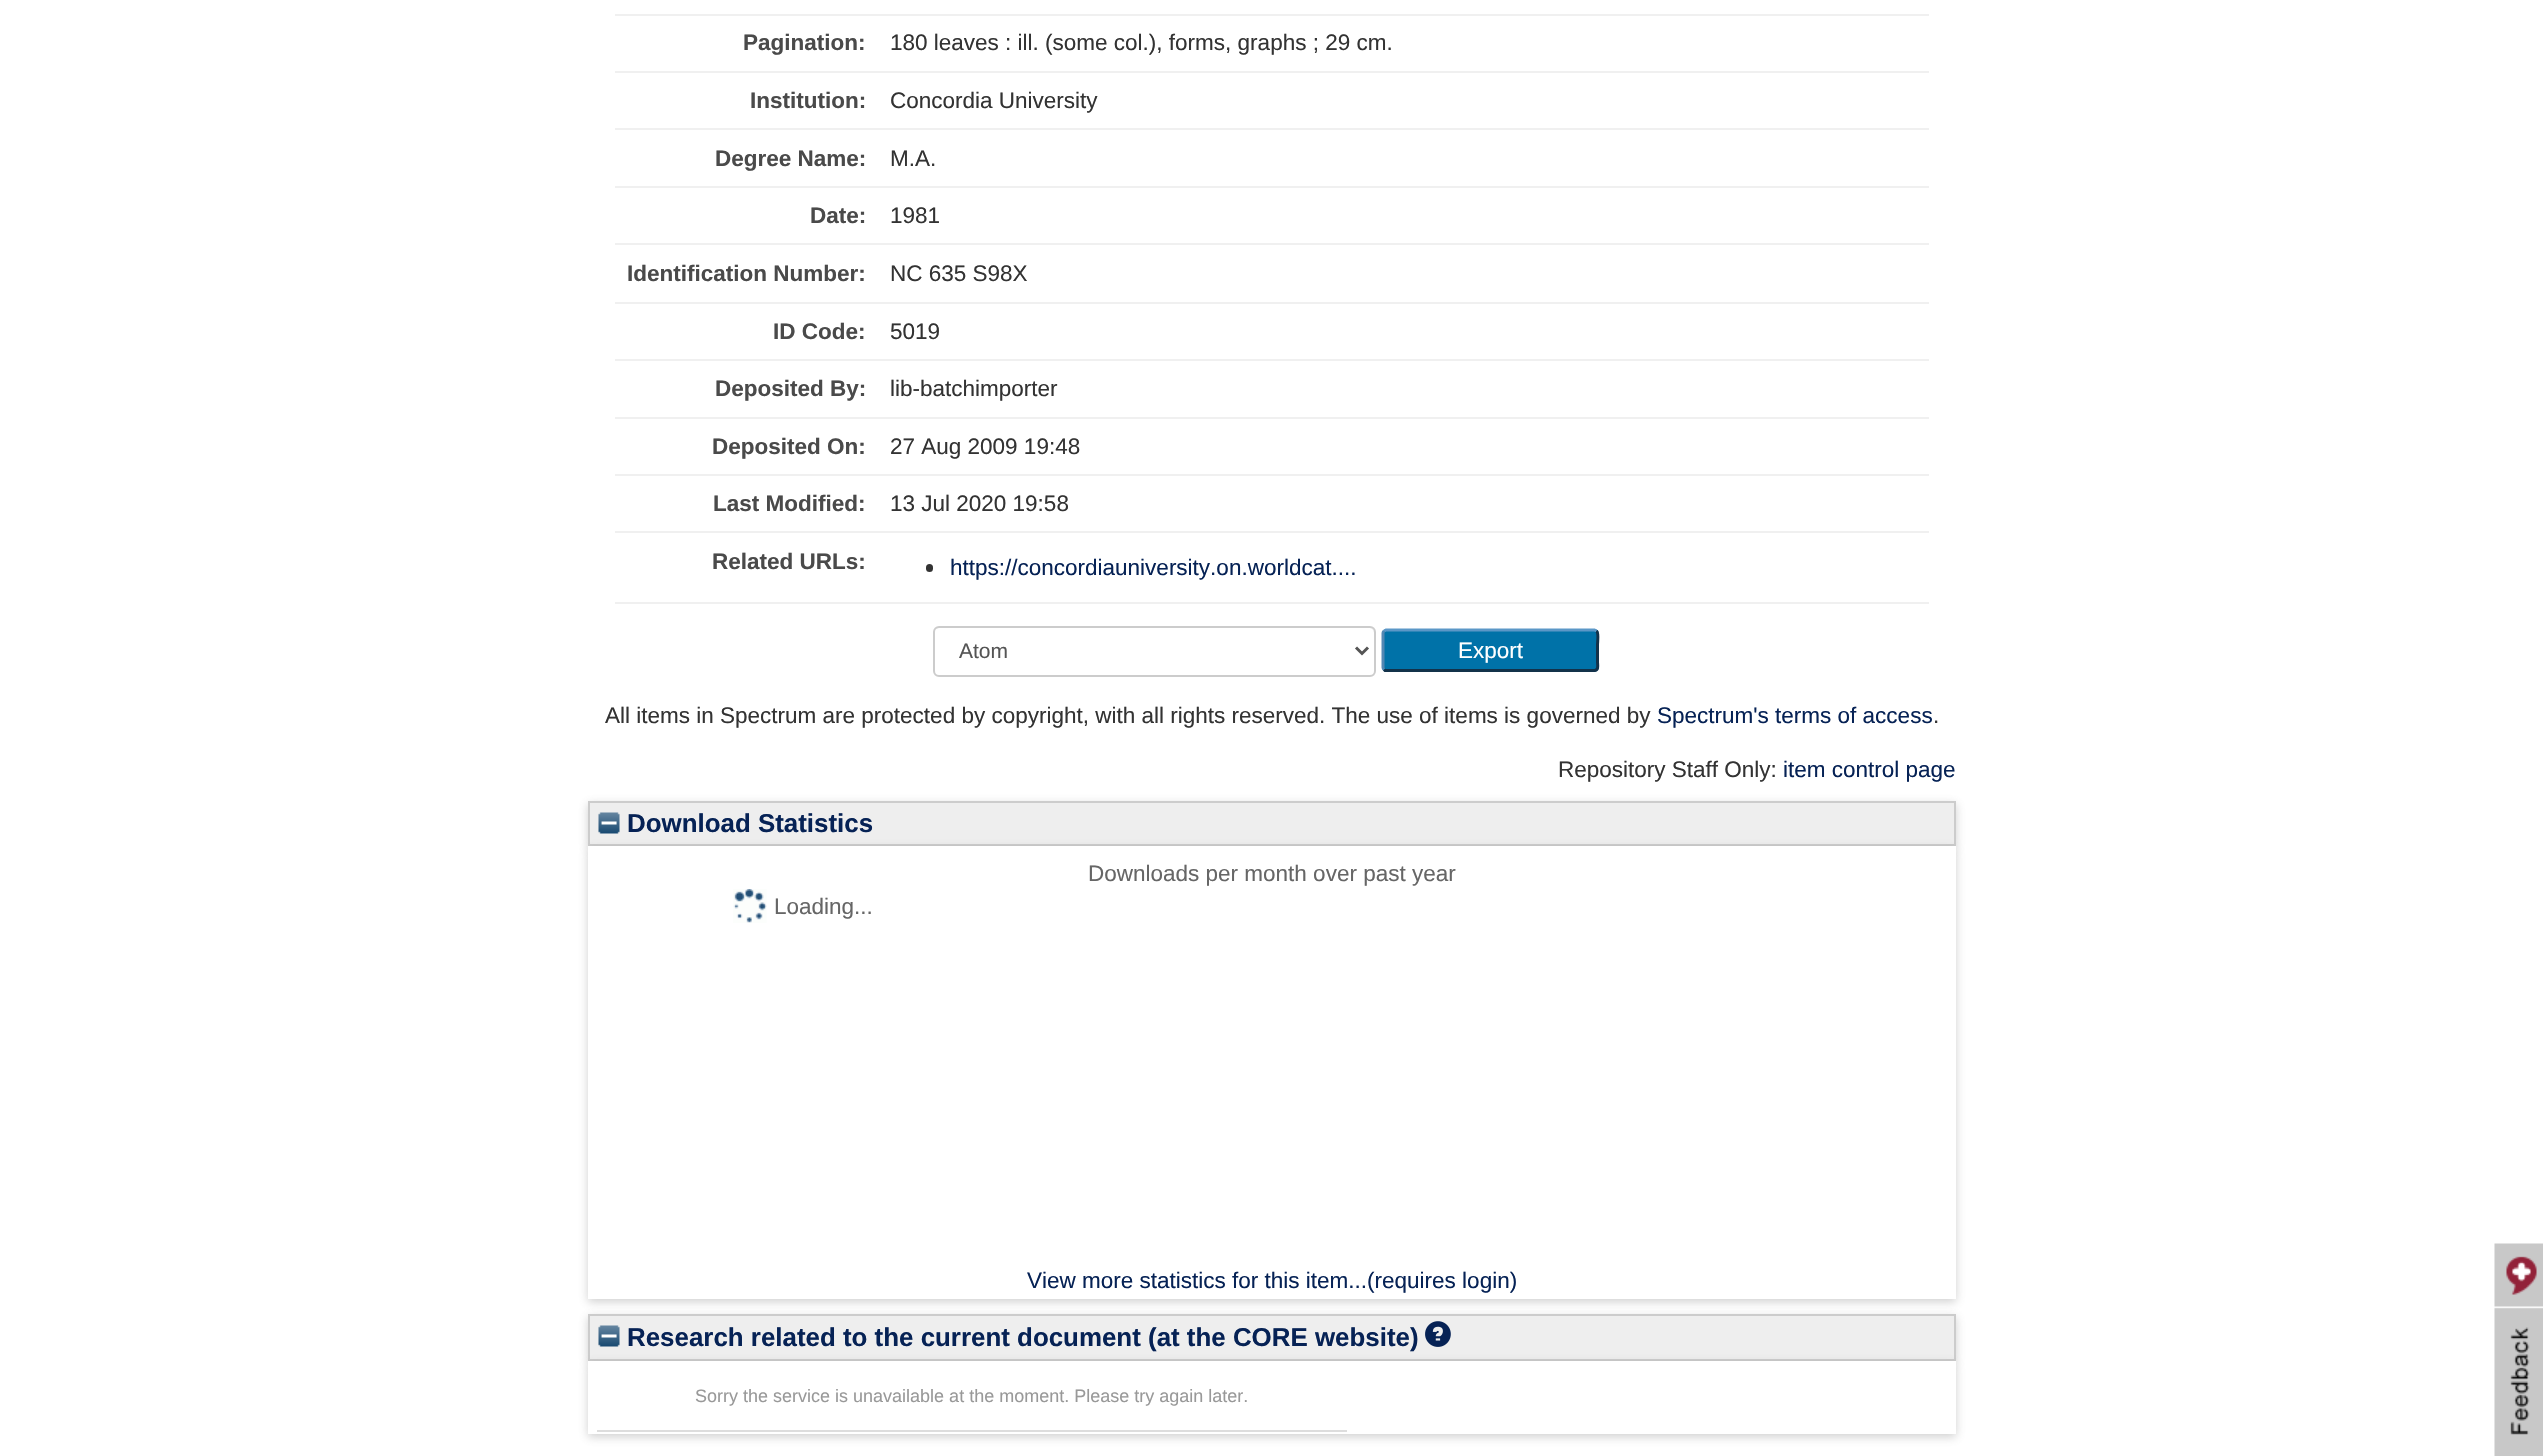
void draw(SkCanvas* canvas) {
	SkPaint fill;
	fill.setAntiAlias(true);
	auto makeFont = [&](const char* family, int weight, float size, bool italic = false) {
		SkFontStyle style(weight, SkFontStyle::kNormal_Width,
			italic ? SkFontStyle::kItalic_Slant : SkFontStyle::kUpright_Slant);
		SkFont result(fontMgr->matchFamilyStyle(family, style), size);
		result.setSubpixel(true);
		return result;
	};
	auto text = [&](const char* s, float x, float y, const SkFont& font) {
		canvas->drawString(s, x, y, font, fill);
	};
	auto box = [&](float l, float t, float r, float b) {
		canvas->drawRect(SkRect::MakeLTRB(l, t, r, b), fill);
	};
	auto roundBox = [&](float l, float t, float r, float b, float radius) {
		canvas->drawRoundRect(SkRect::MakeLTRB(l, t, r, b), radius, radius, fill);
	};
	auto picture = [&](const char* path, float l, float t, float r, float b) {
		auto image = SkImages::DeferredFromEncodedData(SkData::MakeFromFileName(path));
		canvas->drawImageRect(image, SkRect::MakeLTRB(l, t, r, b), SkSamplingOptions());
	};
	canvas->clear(0xFFFFFFFF);
	fill.setColor(0xFFF0F0F0);
	box(615, 14, 1929, 16);
	box(615, 71, 1929, 73);
	box(615, 128, 1929, 130);
	box(615, 186, 1929, 188);
	box(615, 243, 1929, 245);
	box(615, 302, 1929, 304);
	box(615, 359, 1929, 361);
	box(615, 417, 1929, 419);
	box(615, 474, 1929, 476);
	box(615, 531, 1929, 533);
	box(615, 602, 1929, 604);
	fill.setColor(0xFF333333);
	roundBox(926, 564, 933, 572, 3.5f);
	fill.setColor(0xFFECECEC);
	canvas->drawPath(SkPathBuilder().moveTo(939, 628).lineTo(1370, 628).cubicTo(1372, 628, 1374, 631, 1374, 633).lineTo(1374, 632).cubicTo(1374, 629, 1372, 627, 1369, 627).lineTo(940, 627).cubicTo(938, 627, 936, 628, 935, 630).cubicTo(936, 629, 938, 628, 939, 628).close().detach(), fill);
	fill.setStyle(SkPaint::kStroke_Style);
	fill.setStrokeWidth(2);
	fill.setColor(0xFFCCCCCC);
	canvas->drawRoundRect(SkRect::MakeLTRB(934, 627, 1375, 676), 5, 5, fill);
	fill.setStrokeWidth(3);
	fill.setColor(0xFF555555);
	canvas->drawPath(SkPathBuilder().moveTo(1356, 647.5f).lineTo(1362, 653.5f).lineTo(1368, 647.5f).detach(), fill);
	fill.setStyle(SkPaint::kFill_Style);
	fill.setColor(0xFF0072A8);
	roundBox(1382, 629, 1599, 672, 5);
	fill.setStyle(SkPaint::kStroke_Style);
	fill.setColor(0xFF5B97C7);
	canvas->drawPath(SkPathBuilder().moveTo(1384, 631).lineTo(1386, 630).lineTo(1594.5f, 630).lineTo(1596.5f, 631).detach(), fill);
	fill.setColor(0xFF13324A);
	canvas->drawPath(SkPathBuilder().moveTo(1596.5f, 631).cubicTo(1599, 633, 1597.5f, 642, 1597.5f, 644.5f).lineTo(1597.5f, 662).cubicTo(1597.5f, 664, 1599, 670.5f, 1594.5f, 670.5f).lineTo(1385, 670.5f).lineTo(1384, 669.5f).detach(), fill);
	fill.setColor(0xFF5287B3);
	canvas->drawPath(SkPathBuilder().moveTo(1384, 669.5f).cubicTo(1383.5f, 669, 1383, 668.5f, 1383, 667.5f).lineTo(1383, 633).cubicTo(1383, 632, 1383.5f, 631.5f, 1384, 631).detach(), fill);
	fill.setStyle(SkPaint::kFill_Style);
	fill.setColor(0x4D646464);
	fill.setMaskFilter(SkMaskFilter::MakeBlur(kNormal_SkBlurStyle, 4.5f));
	canvas->drawRect(SkRect::MakeLTRB(588, 804, 1956, 849), fill);
	fill.setMaskFilter(nullptr);
	fill.setColor(0xFFEEEEEE);
	canvas->drawRect(SkRect::MakeLTRB(589, 802, 1955, 845), fill);
	fill.setStyle(SkPaint::kStroke_Style);
	fill.setStrokeWidth(2);
	fill.setColor(0xFFCCCCCC);
	canvas->drawRect(SkRect::MakeLTRB(589, 802, 1955, 845), fill);
	picture("image0.png", 598, 812, 620, 834);
	fill.setStyle(SkPaint::kFill_Style);
	fill.setColor(0x4D646464);
	fill.setMaskFilter(SkMaskFilter::MakeBlur(kNormal_SkBlurStyle, 4.5f));
	canvas->drawRect(SkRect::MakeLTRB(588, 849, 1956, 1302), fill);
	fill.setMaskFilter(nullptr);
	fill.setColor(0xFFFFFFFF);
	box(588, 846, 1956, 1299);
	picture("image1.png", 733, 889, 767, 923);
	fill.setColor(0x4D646464);
	fill.setMaskFilter(SkMaskFilter::MakeBlur(kNormal_SkBlurStyle, 4.5f));
	canvas->drawRect(SkRect::MakeLTRB(588, 1317, 1956, 1364), fill);
	fill.setMaskFilter(nullptr);
	fill.setColor(0xFFEEEEEE);
	canvas->drawRect(SkRect::MakeLTRB(589, 1315, 1955, 1360), fill);
	fill.setStyle(SkPaint::kStroke_Style);
	fill.setColor(0xFFCCCCCC);
	canvas->drawRect(SkRect::MakeLTRB(589, 1315, 1955, 1360), fill);
	picture("image0.png", 598, 1325, 620, 1347);
	picture("image2.png", 1425, 1321, 1451, 1347);
	fill.setStyle(SkPaint::kFill_Style);
	fill.setColor(0x4D646464);
	fill.setMaskFilter(SkMaskFilter::MakeBlur(kNormal_SkBlurStyle, 4.5f));
	canvas->drawRect(SkRect::MakeLTRB(588, 1364, 1956, 1437), fill);
	fill.setMaskFilter(nullptr);
	fill.setColor(0xFFFFFFFF);
	box(588, 1361, 1956, 1434);
	fill.setColor(0xFFDDDDDD);
	box(597, 1430, 1347, 1432);
	picture("image3.png", 2494, 1243, 2543, 1456);
	auto font1 = makeFont("Liberation Sans", 700, 22.5f);
	fill.setColor(0xFF4A4A4A);
	text("Pagination:", 743, 50, font1);
	auto font2 = makeFont("Liberation Sans", 400, 22.5f);
	fill.setColor(0xFF333333);
	text("180 leaves : ill. (some col.), forms, graphs ; 29 cm.", 890, 50, font2);
	fill.setColor(0xFF4A4A4A);
	text("Institution:", 750, 108, font1);
	fill.setColor(0xFF333333);
	text("Concordia University", 890, 108, font2);
	fill.setColor(0xFF4A4A4A);
	text("Degree Name:", 715, 166, font1);
	fill.setColor(0xFF333333);
	text("M.A.", 890, 166, font2);
	fill.setColor(0xFF4A4A4A);
	text("Date:", 810, 223, font1);
	fill.setColor(0xFF333333);
	text("1981", 890, 223, font2);
	fill.setColor(0xFF4A4A4A);
	text("Identification Number:", 627, 281, font1);
	fill.setColor(0xFF333333);
	text("NC 635 S98X", 890, 281, font2);
	fill.setColor(0xFF4A4A4A);
	text("ID Code:", 773, 339, font1);
	fill.setColor(0xFF333333);
	text("5019", 890, 339, font2);
	fill.setColor(0xFF4A4A4A);
	text("Deposited By:", 715, 396, font1);
	fill.setColor(0xFF333333);
	text("lib-batchimporter", 890, 396, font2);
	fill.setColor(0xFF4A4A4A);
	text("Deposited On:", 712, 454, font1);
	fill.setColor(0xFF333333);
	text("27 Aug 2009 19:48", 890, 454, font2);
	fill.setColor(0xFF4A4A4A);
	text("Last Modified:", 713, 511, font1);
	fill.setColor(0xFF333333);
	text("13 Jul 2020 19:58", 890, 511, font2);
	fill.setColor(0xFF4A4A4A);
	text("Related URLs:", 712, 569, font1);
	fill.setColor(0xFF062255);
	text("https://concordiauniversity.on.worldcat....", 950, 575, font2);
	auto font3 = makeFont("Liberation Sans", 400, 21);
	fill.setColor(0xFF555555);
	text("Atom", 959, 658, font3);
	fill.setColor(0xFFFFFFFF);
	text("Export", 1458, 658, font2);
	fill.setColor(0xFF333333);
	text("All items in Spectrum are protected by copyright, with all rights reserved. The use of items is governed by", 605, 723, font2);
	fill.setColor(0xFF062255);
	text("Spectrum's terms of access", 1657, 723, font2);
	fill.setColor(0xFF333333);
	text(".", 1933, 723, font2);
	text("Repository Staff Only:", 1558, 777, font2);
	fill.setColor(0xFF062255);
	text("item control page", 1783, 777, font2);
	auto font4 = makeFont("Liberation Sans", 700, 25.9f);
	text("Download Statistics", 627, 832, font4);
	fill.setColor(0xFF666666);
	text("Downloads per month over past year", 1088, 881, font2);
	text("Loading...", 774, 914, font2);
	fill.setColor(0xFF062255);
	text("View more statistics for this item...(requires login)", 1027, 1288, font2);
	text("Research related to the current document (at the CORE website)", 627, 1346, font4);
	auto font5 = makeFont("Liberation Sans", 400, 18);
	fill.setColor(0xFF999999);
	text("Sorry the service is unavailable at the moment. Please try again later.", 695, 1402, font5);
}
